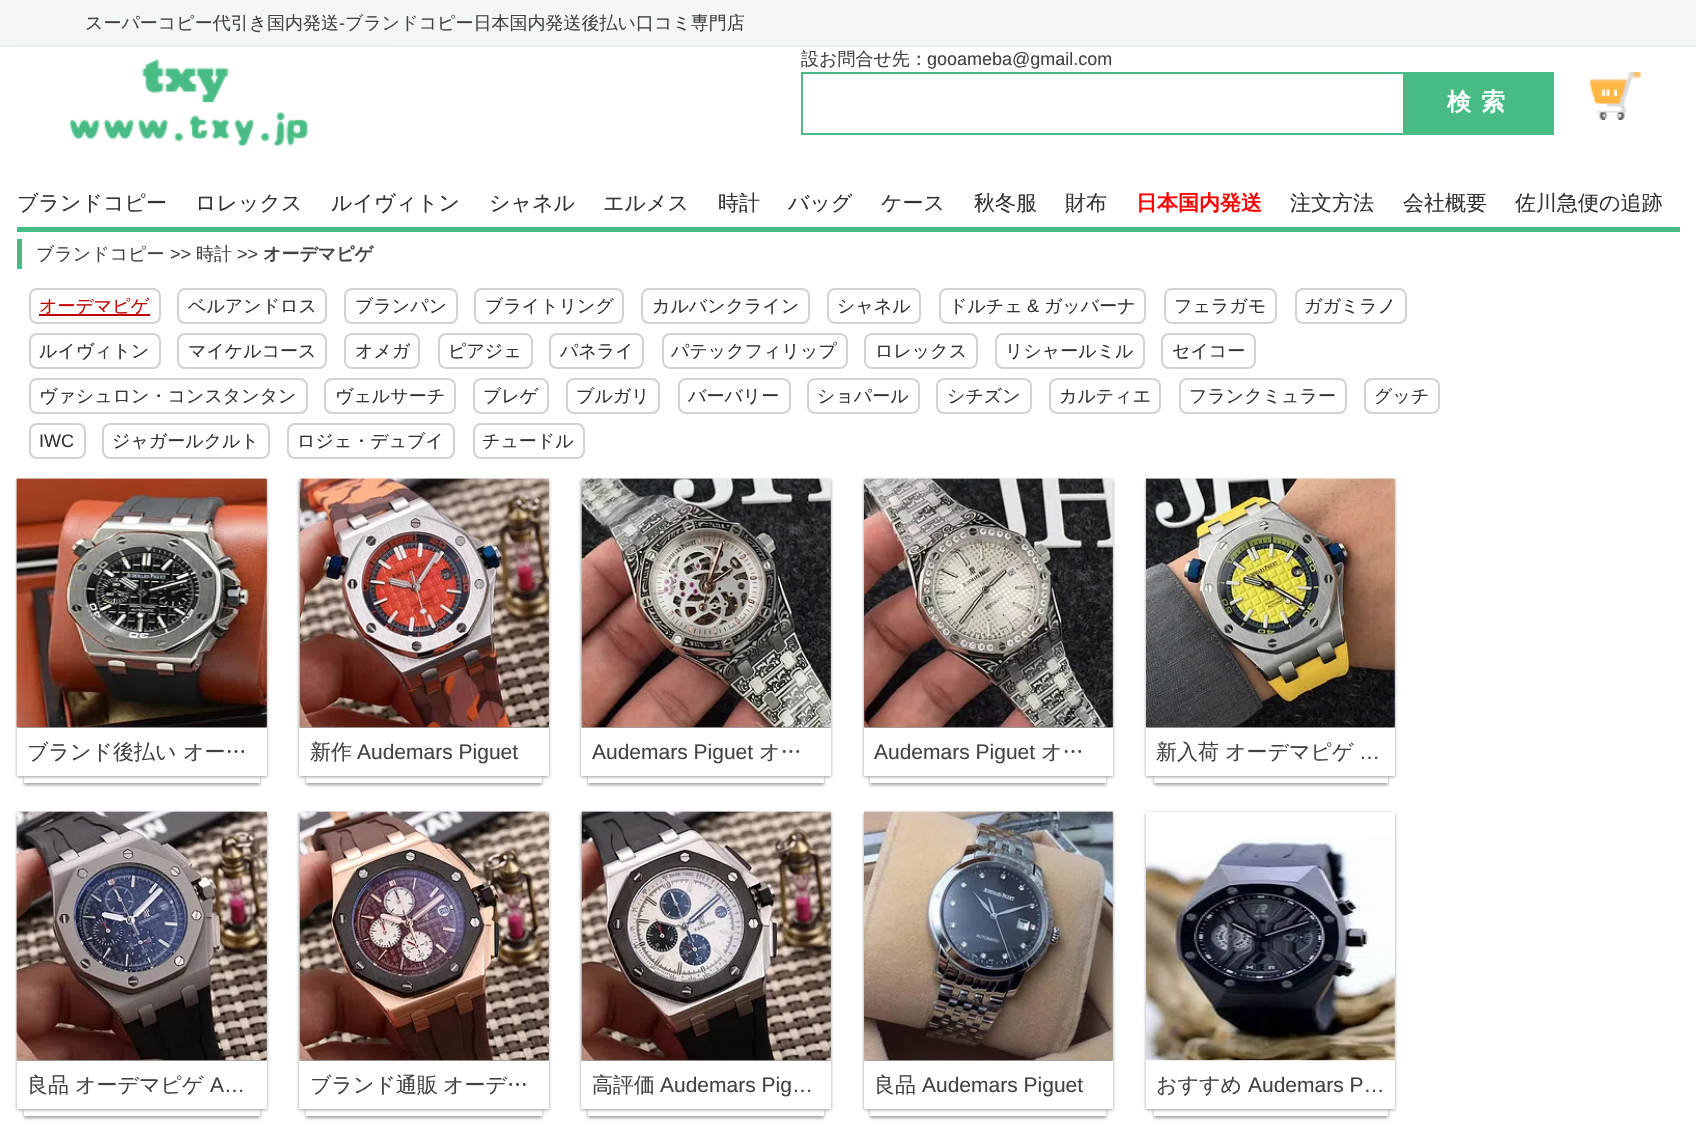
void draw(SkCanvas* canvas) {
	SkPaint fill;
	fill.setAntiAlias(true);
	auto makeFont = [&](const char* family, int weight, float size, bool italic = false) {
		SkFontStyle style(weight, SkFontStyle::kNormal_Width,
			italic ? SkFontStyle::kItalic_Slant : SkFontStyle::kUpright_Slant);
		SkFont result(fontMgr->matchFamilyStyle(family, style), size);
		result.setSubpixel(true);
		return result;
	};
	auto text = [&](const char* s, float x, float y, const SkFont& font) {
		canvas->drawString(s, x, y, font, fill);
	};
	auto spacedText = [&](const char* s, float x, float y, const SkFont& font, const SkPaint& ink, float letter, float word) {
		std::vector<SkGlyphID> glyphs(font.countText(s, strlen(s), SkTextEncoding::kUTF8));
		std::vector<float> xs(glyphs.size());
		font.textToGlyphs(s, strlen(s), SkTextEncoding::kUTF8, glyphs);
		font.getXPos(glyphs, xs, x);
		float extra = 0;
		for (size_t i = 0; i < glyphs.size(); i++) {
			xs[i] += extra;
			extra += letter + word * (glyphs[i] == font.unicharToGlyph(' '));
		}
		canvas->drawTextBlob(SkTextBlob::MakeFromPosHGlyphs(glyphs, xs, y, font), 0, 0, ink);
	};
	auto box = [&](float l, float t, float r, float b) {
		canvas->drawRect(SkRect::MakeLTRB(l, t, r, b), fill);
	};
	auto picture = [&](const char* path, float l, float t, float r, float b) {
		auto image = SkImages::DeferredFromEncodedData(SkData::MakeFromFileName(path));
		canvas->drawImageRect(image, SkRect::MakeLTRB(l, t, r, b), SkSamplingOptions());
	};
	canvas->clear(0xFFFFFFFF);
	fill.setColor(0xFFF3F7F7);
	box(0, 0, 1696, 45);
	fill.setColor(0xFFEEEEEE);
	box(0, 45, 1696, 47);
	picture("image0.png", 17, 46, 396, 146);
	fill.setStyle(SkPaint::kStroke_Style);
	fill.setStrokeWidth(2);
	fill.setColor(0xFF49BC85);
	canvas->drawRect(SkRect::MakeLTRB(802, 73, 1553, 134), fill);
	fill.setStyle(SkPaint::kFill_Style);
	box(1403, 74, 1552, 133);
	picture("image1.png", 1589, 72, 1641, 120);
	box(17, 227, 1680, 232);
	box(17, 239, 22, 269);
	fill.setStyle(SkPaint::kStroke_Style);
	fill.setColor(0xFFD2D2D2);
	canvas->drawRoundRect(SkRect::MakeLTRB(30, 289, 160, 323), 7, 7, fill);
	fill.setStyle(SkPaint::kFill_Style);
	fill.setColor(0xFFC10001);
	box(39, 314, 150, 316);
	fill.setStyle(SkPaint::kStroke_Style);
	fill.setColor(0xFFD2D2D2);
	canvas->drawRoundRect(SkRect::MakeLTRB(178, 289, 326, 323), 7, 7, fill);
	canvas->drawRoundRect(SkRect::MakeLTRB(345, 289, 457, 323), 7, 7, fill);
	canvas->drawRoundRect(SkRect::MakeLTRB(475, 289, 623, 323), 7, 7, fill);
	canvas->drawRoundRect(SkRect::MakeLTRB(642, 289, 809, 323), 7, 7, fill);
	canvas->drawRoundRect(SkRect::MakeLTRB(828, 289, 920, 323), 7, 7, fill);
	canvas->drawRoundRect(SkRect::MakeLTRB(940, 289, 1145, 323), 7, 7, fill);
	canvas->drawRoundRect(SkRect::MakeLTRB(1165, 289, 1276, 323), 7, 7, fill);
	canvas->drawRoundRect(SkRect::MakeLTRB(1296, 289, 1406, 323), 7, 7, fill);
	canvas->drawRoundRect(SkRect::MakeLTRB(30, 334, 160, 368), 7, 7, fill);
	canvas->drawRoundRect(SkRect::MakeLTRB(178, 334, 326, 368), 7, 7, fill);
	canvas->drawRoundRect(SkRect::MakeLTRB(345, 334, 419, 368), 7, 7, fill);
	canvas->drawRoundRect(SkRect::MakeLTRB(439, 334, 532, 368), 7, 7, fill);
	canvas->drawRoundRect(SkRect::MakeLTRB(550, 334, 643, 368), 7, 7, fill);
	canvas->drawRoundRect(SkRect::MakeLTRB(663, 334, 847, 368), 7, 7, fill);
	canvas->drawRoundRect(SkRect::MakeLTRB(865, 334, 977, 368), 7, 7, fill);
	canvas->drawRoundRect(SkRect::MakeLTRB(996, 334, 1144, 368), 7, 7, fill);
	canvas->drawRoundRect(SkRect::MakeLTRB(1162, 334, 1255, 368), 7, 7, fill);
	canvas->drawRoundRect(SkRect::MakeLTRB(30, 379, 307, 413), 7, 7, fill);
	canvas->drawRoundRect(SkRect::MakeLTRB(325, 379, 455, 413), 7, 7, fill);
	canvas->drawRoundRect(SkRect::MakeLTRB(474, 379, 548, 413), 7, 7, fill);
	canvas->drawRoundRect(SkRect::MakeLTRB(567, 379, 659, 413), 7, 7, fill);
	canvas->drawRoundRect(SkRect::MakeLTRB(679, 379, 790, 413), 7, 7, fill);
	canvas->drawRoundRect(SkRect::MakeLTRB(808, 379, 919, 413), 7, 7, fill);
	canvas->drawRoundRect(SkRect::MakeLTRB(937, 379, 1031, 413), 7, 7, fill);
	canvas->drawRoundRect(SkRect::MakeLTRB(1050, 379, 1160, 413), 7, 7, fill);
	canvas->drawRoundRect(SkRect::MakeLTRB(1180, 379, 1346, 413), 7, 7, fill);
	canvas->drawRoundRect(SkRect::MakeLTRB(1365, 379, 1439, 413), 7, 7, fill);
	canvas->drawRoundRect(SkRect::MakeLTRB(30, 424, 85, 458), 7, 7, fill);
	canvas->drawRoundRect(SkRect::MakeLTRB(103, 424, 269, 458), 7, 7, fill);
	canvas->drawRoundRect(SkRect::MakeLTRB(288, 424, 454, 458), 7, 7, fill);
	canvas->drawRoundRect(SkRect::MakeLTRB(474, 424, 584, 458), 7, 7, fill);
	fill.setStyle(SkPaint::kFill_Style);
	fill.setColor(0xFF9F9F9F);
	fill.setMaskFilter(SkMaskFilter::MakeBlur(kNormal_SkBlurStyle, 1.5f));
	canvas->drawRect(SkRect::MakeLTRB(17, 480, 267, 777), fill);
	fill.setMaskFilter(nullptr);
	picture("image2.png", 16, 478, 267, 728);
	canvas->save();
	canvas->clipPath(SkPathBuilder(SkPathFillType::kEvenOdd).moveTo(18, 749).lineTo(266, 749).lineTo(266, 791).lineTo(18, 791).close().moveTo(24, 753).lineTo(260, 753).lineTo(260, 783).lineTo(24, 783).close().detach(), true);
	fill.setMaskFilter(SkMaskFilter::MakeBlur(kNormal_SkBlurStyle, 1.5f));
	canvas->drawRect(SkRect::MakeLTRB(24, 755, 260, 785), fill);
	fill.setMaskFilter(nullptr);
	canvas->restore();
	fill.setColor(0xFFFFFFFF);
	box(17, 728, 267, 776);
	fill.setColor(0xFF9F9F9F);
	fill.setMaskFilter(SkMaskFilter::MakeBlur(kNormal_SkBlurStyle, 1.5f));
	canvas->drawRect(SkRect::MakeLTRB(299, 480, 549, 777), fill);
	fill.setMaskFilter(nullptr);
	picture("image3.png", 299, 478, 549, 728);
	canvas->save();
	canvas->clipPath(SkPathBuilder(SkPathFillType::kEvenOdd).moveTo(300, 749).lineTo(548, 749).lineTo(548, 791).lineTo(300, 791).close().moveTo(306, 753).lineTo(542, 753).lineTo(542, 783).lineTo(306, 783).close().detach(), true);
	fill.setMaskFilter(SkMaskFilter::MakeBlur(kNormal_SkBlurStyle, 1.5f));
	canvas->drawRect(SkRect::MakeLTRB(306, 755, 542, 785), fill);
	fill.setMaskFilter(nullptr);
	canvas->restore();
	fill.setColor(0xFFFFFFFF);
	box(299, 728, 549, 776);
	fill.setColor(0xFF9F9F9F);
	fill.setMaskFilter(SkMaskFilter::MakeBlur(kNormal_SkBlurStyle, 1.5f));
	canvas->drawRect(SkRect::MakeLTRB(581, 480, 831, 777), fill);
	fill.setMaskFilter(nullptr);
	picture("image4.png", 581, 478, 831, 728);
	canvas->save();
	canvas->clipPath(SkPathBuilder(SkPathFillType::kEvenOdd).moveTo(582, 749).lineTo(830, 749).lineTo(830, 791).lineTo(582, 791).close().moveTo(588, 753).lineTo(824, 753).lineTo(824, 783).lineTo(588, 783).close().detach(), true);
	fill.setMaskFilter(SkMaskFilter::MakeBlur(kNormal_SkBlurStyle, 1.5f));
	canvas->drawRect(SkRect::MakeLTRB(588, 755, 824, 785), fill);
	fill.setMaskFilter(nullptr);
	canvas->restore();
	fill.setColor(0xFFFFFFFF);
	box(581, 728, 831, 776);
	fill.setColor(0xFF9F9F9F);
	fill.setMaskFilter(SkMaskFilter::MakeBlur(kNormal_SkBlurStyle, 1.5f));
	canvas->drawRect(SkRect::MakeLTRB(864, 480, 1113, 777), fill);
	fill.setMaskFilter(nullptr);
	picture("image5.png", 864, 478, 1113, 728);
	canvas->save();
	canvas->clipPath(SkPathBuilder(SkPathFillType::kEvenOdd).moveTo(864, 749).lineTo(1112, 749).lineTo(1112, 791).lineTo(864, 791).close().moveTo(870, 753).lineTo(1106, 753).lineTo(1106, 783).lineTo(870, 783).close().detach(), true);
	fill.setMaskFilter(SkMaskFilter::MakeBlur(kNormal_SkBlurStyle, 1.5f));
	canvas->drawRect(SkRect::MakeLTRB(870, 755, 1106, 785), fill);
	fill.setMaskFilter(nullptr);
	canvas->restore();
	fill.setColor(0xFFFFFFFF);
	box(864, 728, 1113, 776);
	fill.setColor(0xFF9F9F9F);
	fill.setMaskFilter(SkMaskFilter::MakeBlur(kNormal_SkBlurStyle, 1.5f));
	canvas->drawRect(SkRect::MakeLTRB(1146, 480, 1395, 777), fill);
	fill.setMaskFilter(nullptr);
	picture("image6.png", 1146, 478, 1395, 728);
	canvas->save();
	canvas->clipPath(SkPathBuilder(SkPathFillType::kEvenOdd).moveTo(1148, 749).lineTo(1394, 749).lineTo(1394, 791).lineTo(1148, 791).close().moveTo(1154, 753).lineTo(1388, 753).lineTo(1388, 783).lineTo(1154, 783).close().detach(), true);
	fill.setMaskFilter(SkMaskFilter::MakeBlur(kNormal_SkBlurStyle, 1.5f));
	canvas->drawRect(SkRect::MakeLTRB(1154, 755, 1388, 785), fill);
	fill.setMaskFilter(nullptr);
	canvas->restore();
	fill.setColor(0xFFFFFFFF);
	box(1146, 728, 1395, 776);
	fill.setColor(0xFF9F9F9F);
	fill.setMaskFilter(SkMaskFilter::MakeBlur(kNormal_SkBlurStyle, 1.5f));
	canvas->drawRect(SkRect::MakeLTRB(17, 813, 267, 1110), fill);
	fill.setMaskFilter(nullptr);
	picture("image7.png", 16, 811, 267, 1061);
	canvas->save();
	canvas->clipPath(SkPathBuilder(SkPathFillType::kEvenOdd).moveTo(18, 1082).lineTo(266, 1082).lineTo(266, 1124).lineTo(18, 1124).close().moveTo(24, 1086).lineTo(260, 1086).lineTo(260, 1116).lineTo(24, 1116).close().detach(), true);
	fill.setMaskFilter(SkMaskFilter::MakeBlur(kNormal_SkBlurStyle, 1.5f));
	canvas->drawRect(SkRect::MakeLTRB(24, 1088, 260, 1118), fill);
	fill.setMaskFilter(nullptr);
	canvas->restore();
	fill.setColor(0xFFFFFFFF);
	box(17, 1061, 267, 1109);
	fill.setColor(0xFF9F9F9F);
	fill.setMaskFilter(SkMaskFilter::MakeBlur(kNormal_SkBlurStyle, 1.5f));
	canvas->drawRect(SkRect::MakeLTRB(299, 813, 549, 1110), fill);
	fill.setMaskFilter(nullptr);
	picture("image8.png", 299, 811, 549, 1061);
	canvas->save();
	canvas->clipPath(SkPathBuilder(SkPathFillType::kEvenOdd).moveTo(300, 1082).lineTo(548, 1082).lineTo(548, 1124).lineTo(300, 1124).close().moveTo(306, 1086).lineTo(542, 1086).lineTo(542, 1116).lineTo(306, 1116).close().detach(), true);
	fill.setMaskFilter(SkMaskFilter::MakeBlur(kNormal_SkBlurStyle, 1.5f));
	canvas->drawRect(SkRect::MakeLTRB(306, 1088, 542, 1118), fill);
	fill.setMaskFilter(nullptr);
	canvas->restore();
	fill.setColor(0xFFFFFFFF);
	box(299, 1061, 549, 1109);
	fill.setColor(0xFF9F9F9F);
	fill.setMaskFilter(SkMaskFilter::MakeBlur(kNormal_SkBlurStyle, 1.5f));
	canvas->drawRect(SkRect::MakeLTRB(581, 813, 831, 1110), fill);
	fill.setMaskFilter(nullptr);
	picture("image9.png", 581, 811, 831, 1061);
	canvas->save();
	canvas->clipPath(SkPathBuilder(SkPathFillType::kEvenOdd).moveTo(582, 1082).lineTo(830, 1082).lineTo(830, 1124).lineTo(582, 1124).close().moveTo(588, 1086).lineTo(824, 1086).lineTo(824, 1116).lineTo(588, 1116).close().detach(), true);
	fill.setMaskFilter(SkMaskFilter::MakeBlur(kNormal_SkBlurStyle, 1.5f));
	canvas->drawRect(SkRect::MakeLTRB(588, 1088, 824, 1118), fill);
	fill.setMaskFilter(nullptr);
	canvas->restore();
	fill.setColor(0xFFFFFFFF);
	box(581, 1061, 831, 1109);
	fill.setColor(0xFF9F9F9F);
	fill.setMaskFilter(SkMaskFilter::MakeBlur(kNormal_SkBlurStyle, 1.5f));
	canvas->drawRect(SkRect::MakeLTRB(864, 813, 1113, 1110), fill);
	fill.setMaskFilter(nullptr);
	picture("image10.png", 864, 811, 1113, 1061);
	canvas->save();
	canvas->clipPath(SkPathBuilder(SkPathFillType::kEvenOdd).moveTo(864, 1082).lineTo(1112, 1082).lineTo(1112, 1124).lineTo(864, 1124).close().moveTo(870, 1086).lineTo(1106, 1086).lineTo(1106, 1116).lineTo(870, 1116).close().detach(), true);
	fill.setMaskFilter(SkMaskFilter::MakeBlur(kNormal_SkBlurStyle, 1.5f));
	canvas->drawRect(SkRect::MakeLTRB(870, 1088, 1106, 1118), fill);
	fill.setMaskFilter(nullptr);
	canvas->restore();
	fill.setColor(0xFFFFFFFF);
	box(864, 1061, 1113, 1109);
	canvas->save();
	canvas->clipPath(SkPathBuilder(SkPathFillType::kEvenOdd).moveTo(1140, 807).lineTo(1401, 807).lineTo(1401, 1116).lineTo(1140, 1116).close().moveTo(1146, 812).lineTo(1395, 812).lineTo(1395, 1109).lineTo(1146, 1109).close().detach(), true);
	fill.setColor(0xFF9F9F9F);
	fill.setMaskFilter(SkMaskFilter::MakeBlur(kNormal_SkBlurStyle, 1.5f));
	canvas->drawRect(SkRect::MakeLTRB(1146, 813, 1395, 1110), fill);
	fill.setMaskFilter(nullptr);
	canvas->restore();
	picture("image11.png", 1146, 837, 1395, 1061);
	canvas->save();
	canvas->clipPath(SkPathBuilder(SkPathFillType::kEvenOdd).moveTo(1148, 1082).lineTo(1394, 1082).lineTo(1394, 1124).lineTo(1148, 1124).close().moveTo(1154, 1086).lineTo(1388, 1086).lineTo(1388, 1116).lineTo(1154, 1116).close().detach(), true);
	fill.setMaskFilter(SkMaskFilter::MakeBlur(kNormal_SkBlurStyle, 1.5f));
	canvas->drawRect(SkRect::MakeLTRB(1154, 1088, 1388, 1118), fill);
	fill.setMaskFilter(nullptr);
	canvas->restore();
	fill.setColor(0xFFFFFFFF);
	box(1146, 1085, 1395, 1109);
	auto font1 = makeFont("WenQuanYi Zen Hei", 500, 18);
	fill.setColor(0xFF454141);
	text("スーパーコピー代引き国内発送", 85, 29, font1);
	auto font2 = makeFont("Liberation Sans", 400, 18);
	text("-", 339, 29, font2);
	text("ブランドコピー日本国内発送後払い口コミ専門店", 345, 29, font1);
	text("設お問合せ先：", 801, 65, font1);
	text("gooameba@gmail.com", 927, 65, font2);
	auto font3 = makeFont("WenQuanYi Zen Hei", 700, 24);
	fill.setColor(0xFFFFFFFF);
	spacedText("検索", 1447, 110, font3, fill, 10, 0);
	auto font4 = makeFont("WenQuanYi Zen Hei", 500, 21);
	fill.setColor(0xFF333333);
	text("ブランドコピー", 17, 210, font4);
	text("ロレックス", 195, 210, font4);
	text("ルイヴィトン", 331, 210, font4);
	text("シャネル", 489, 210, font4);
	text("エルメス", 603, 210, font4);
	text("時計", 718, 210, font4);
	text("バッグ", 788, 210, font4);
	text("ケース", 881, 210, font4);
	text("秋冬服", 974, 210, font4);
	text("財布", 1065, 210, font4);
	auto font5 = makeFont("WenQuanYi Zen Hei", 700, 21);
	fill.setColor(0xFFFF0000);
	text("日本国内発送", 1136, 210, font5);
	fill.setColor(0xFF333333);
	text("注文方法", 1290, 210, font4);
	text("会社概要", 1403, 210, font4);
	text("佐川急便の追跡", 1515, 210, font4);
	fill.setColor(0xFF454141);
	text("ブランドコピー", 36, 260, font1);
	text(">>", 170, 260, font2);
	text("時計", 196, 260, font1);
	text(">>", 237, 260, font2);
	auto font6 = makeFont("WenQuanYi Zen Hei", 700, 18);
	text("オーデマピゲ", 263, 260, font6);
	fill.setColor(0xFFC10001);
	text("オーデマピゲ", 39, 312, font1);
	fill.setColor(0xFF333333);
	text("ベルアンドロス", 188, 312, font1);
	text("ブランパン", 355, 312, font1);
	text("ブライトリング", 485, 312, font1);
	text("カルバンクライン", 652, 312, font1);
	text("シャネル", 837, 312, font1);
	text("ドルチェ", 949, 312, font1);
	text("&", 1027, 312, font2);
	text("ガッバーナ", 1044, 312, font1);
	text("フェラガモ", 1174, 312, font1);
	text("ガガミラノ", 1304, 312, font1);
	text("ルイヴィトン", 39, 357, font1);
	text("マイケルコース", 188, 357, font1);
	text("オメガ", 355, 357, font1);
	text("ピアジェ", 448, 357, font1);
	text("パネライ", 560, 357, font1);
	text("パテックフィリップ", 671, 357, font1);
	text("ロレックス", 875, 357, font1);
	text("リシャールミル", 1005, 357, font1);
	text("セイコー", 1172, 357, font1);
	text("ヴァシュロン・コンスタンタン", 39, 402, font1);
	text("ヴェルサーチ", 335, 402, font1);
	text("ブレゲ", 483, 402, font1);
	text("ブルガリ", 576, 402, font1);
	text("バーバリー", 688, 402, font1);
	text("ショパール", 817, 402, font1);
	text("シチズン", 947, 402, font1);
	text("カルティエ", 1059, 402, font1);
	text("フランクミュラー", 1189, 402, font1);
	text("グッチ", 1374, 402, font1);
	text("IWC", 39, 447, font2);
	text("ジャガールクルト", 112, 447, font1);
	text("ロジェ・デュブイ", 297, 447, font1);
	text("チュードル", 482, 447, font1);
	fill.setColor(0xFF454141);
	text("ブランド後払い", 27, 759, font4);
	text("オー…", 183, 759, font4);
	text("新作", 310, 759, font4);
	auto font7 = makeFont("Liberation Sans", 400, 21);
	text("Audemars Piguet", 357, 759, font7);
	text("Audemars Piguet", 592, 759, font7);
	text("オ…", 759, 759, font4);
	text("Audemars Piguet", 874, 759, font7);
	text("オ…", 1041, 759, font4);
	text("新入荷", 1156, 759, font4);
	text("オーデマピゲ", 1225, 759, font4);
	text("…", 1359, 759, font7);
	text("良品", 27, 1092, font4);
	text("オーデマピゲ", 75, 1092, font4);
	text("A…", 210, 1092, font7);
	text("ブランド通販", 310, 1092, font4);
	text("オーデ…", 443, 1092, font4);
	text("高評価", 592, 1092, font4);
	text("Audemars Pig…", 660, 1092, font7);
	text("良品", 874, 1092, font4);
	text("Audemars Piguet", 922, 1092, font7);
	text("おすすめ", 1156, 1092, font4);
	text("Audemars P…", 1248, 1092, font7);
}
